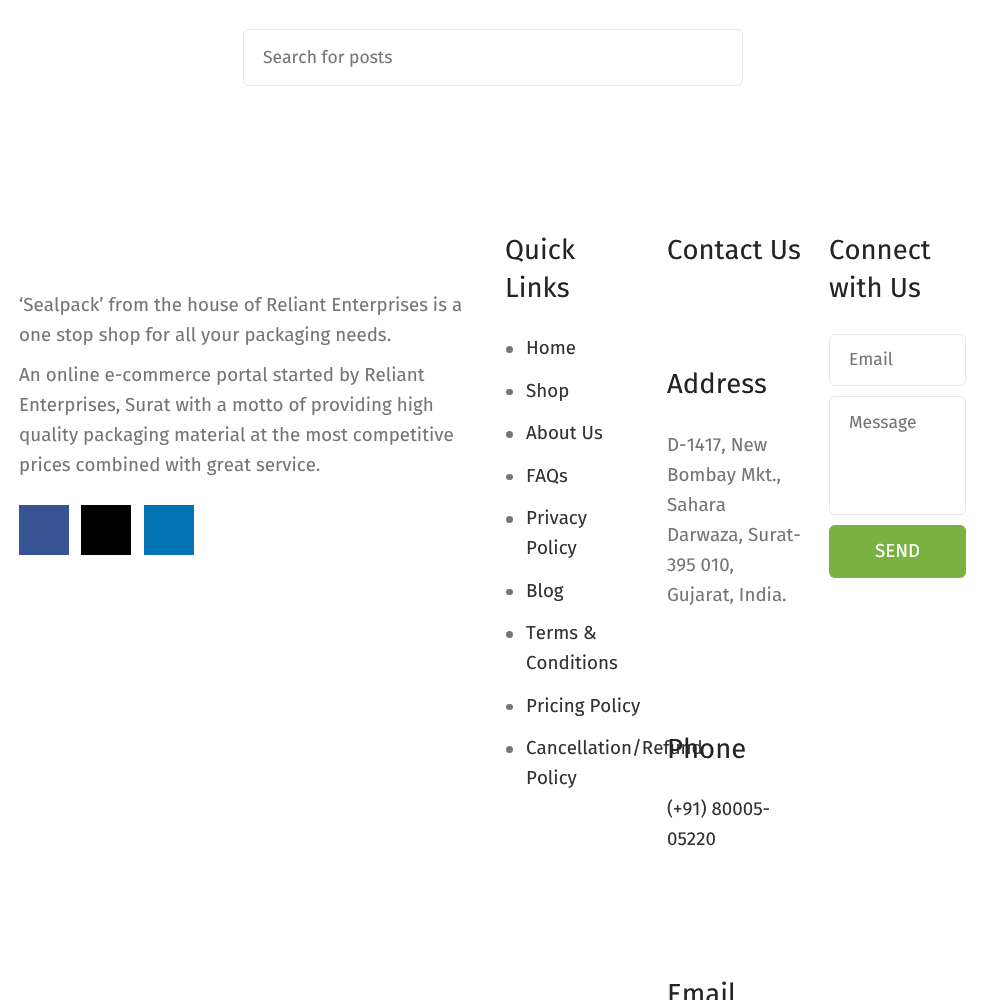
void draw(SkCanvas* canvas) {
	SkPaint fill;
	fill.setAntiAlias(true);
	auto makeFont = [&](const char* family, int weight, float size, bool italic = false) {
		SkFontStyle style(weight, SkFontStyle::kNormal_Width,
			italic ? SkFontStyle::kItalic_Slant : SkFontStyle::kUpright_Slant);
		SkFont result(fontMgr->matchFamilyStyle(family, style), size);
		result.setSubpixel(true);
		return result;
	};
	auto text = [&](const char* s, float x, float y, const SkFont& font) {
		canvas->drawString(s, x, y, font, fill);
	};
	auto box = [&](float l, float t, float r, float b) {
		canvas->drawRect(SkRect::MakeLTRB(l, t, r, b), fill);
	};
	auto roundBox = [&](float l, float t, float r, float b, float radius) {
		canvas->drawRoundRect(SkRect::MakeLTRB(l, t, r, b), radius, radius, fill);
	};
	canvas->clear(0xFFFFFFFF);
	fill.setStyle(SkPaint::kStroke_Style);
	fill.setStrokeWidth(1);
	fill.setColor(0xFFE6E6E6);
	canvas->drawRoundRect(SkRect::MakeLTRB(243.5f, 29.5f, 742.5f, 85.5f), 5.5f, 5.5f, fill);
	fill.setStyle(SkPaint::kFill_Style);
	fill.setColor(0xFF365493);
	box(19, 505, 69, 555);
	fill.setColor(0xFF000000);
	box(81, 505, 131, 555);
	fill.setColor(0xFF0274B3);
	box(144, 505, 194, 555);
	fill.setColor(0xFF767676);
	canvas->drawCircle(509.5f, 349.5f, 3.5f, fill);
	roundBox(506, 389, 513, 395, 3);
	canvas->drawCircle(509.5f, 434.5f, 3.5f, fill);
	roundBox(506, 474, 513, 480, 3);
	canvas->drawCircle(509.5f, 519.5f, 3.5f, fill);
	roundBox(506, 589, 513, 595, 3);
	canvas->drawCircle(509.5f, 634.5f, 3.5f, fill);
	roundBox(506, 704, 513, 710, 3);
	canvas->drawCircle(509.5f, 749.5f, 3.5f, fill);
	fill.setStyle(SkPaint::kStroke_Style);
	fill.setColor(0xFFE6E6E6);
	canvas->drawRoundRect(SkRect::MakeLTRB(829.5f, 334.5f, 965.5f, 385.5f), 5.5f, 5.5f, fill);
	canvas->drawRoundRect(SkRect::MakeLTRB(829.5f, 396.5f, 965.5f, 514.5f), 5.5f, 5.5f, fill);
	fill.setStyle(SkPaint::kFill_Style);
	fill.setColor(0xFF79B240);
	roundBox(829, 525, 966, 578, 6);
	auto font1 = makeFont("Fira Sans", 400, 17.5f);
	fill.setColor(0xFF767676);
	text("Search for posts", 263, 63, font1);
	auto font2 = makeFont("Fira Sans", 400, 18.75f);
	text("‘Sealpack’ from the house of Reliant Enterprises is a", 19, 311, font2);
	text("one stop shop for all your packaging needs.", 19, 341, font2);
	text("An online e-commerce portal started by Reliant", 19, 381, font2);
	text("Enterprises, Surat with a motto of providing high", 19, 411, font2);
	text("quality packaging material at the most competitive", 19, 441, font2);
	text("prices combined with great service.", 19, 471, font2);
	auto font3 = makeFont("Fira Sans", 400, 27.5f);
	fill.setColor(0xFF242424);
	text("Quick", 505, 259, font3);
	text("Links", 505, 297, font3);
	fill.setColor(0xFF333333);
	text("Home", 526, 354, font2);
	text("Shop", 526, 397, font2);
	text("About Us", 526, 439, font2);
	text("FAQs", 526, 482, font2);
	text("Privacy", 526, 524, font2);
	text("Policy", 526, 554, font2);
	text("Blog", 526, 597, font2);
	text("Terms &", 526, 639, font2);
	text("Conditions", 526, 669, font2);
	text("Pricing Policy", 526, 712, font2);
	text("Cancellation/Refund", 526, 754, font2);
	text("Policy", 526, 784, font2);
	fill.setColor(0xFF242424);
	text("Contact Us", 667, 259, font3);
	text("Address", 667, 393, font3);
	fill.setColor(0xFF767676);
	text("D-1417, New", 667, 451, font2);
	text("Bombay Mkt.,", 667, 481, font2);
	text("Sahara", 667, 511, font2);
	text("Darwaza, Surat-", 667, 541, font2);
	text("395 010,", 667, 571, font2);
	text("Gujarat, India.", 667, 601, font2);
	fill.setColor(0xFF242424);
	text("Phone", 667, 758, font3);
	fill.setColor(0xFF333333);
	text("(+91) 80005-", 667, 815, font2);
	text("05220", 667, 845, font2);
	fill.setColor(0xFF242424);
	text("Email", 667, 1003, font3);
	text("Connect", 829, 259, font3);
	text("with Us", 829, 297, font3);
	fill.setColor(0xFF767676);
	text("Email", 849, 365, font1);
	text("Message", 849, 428, font1);
	fill.setColor(0xFFFFFFFF);
	text("SEND", 875, 557, font2);
}
